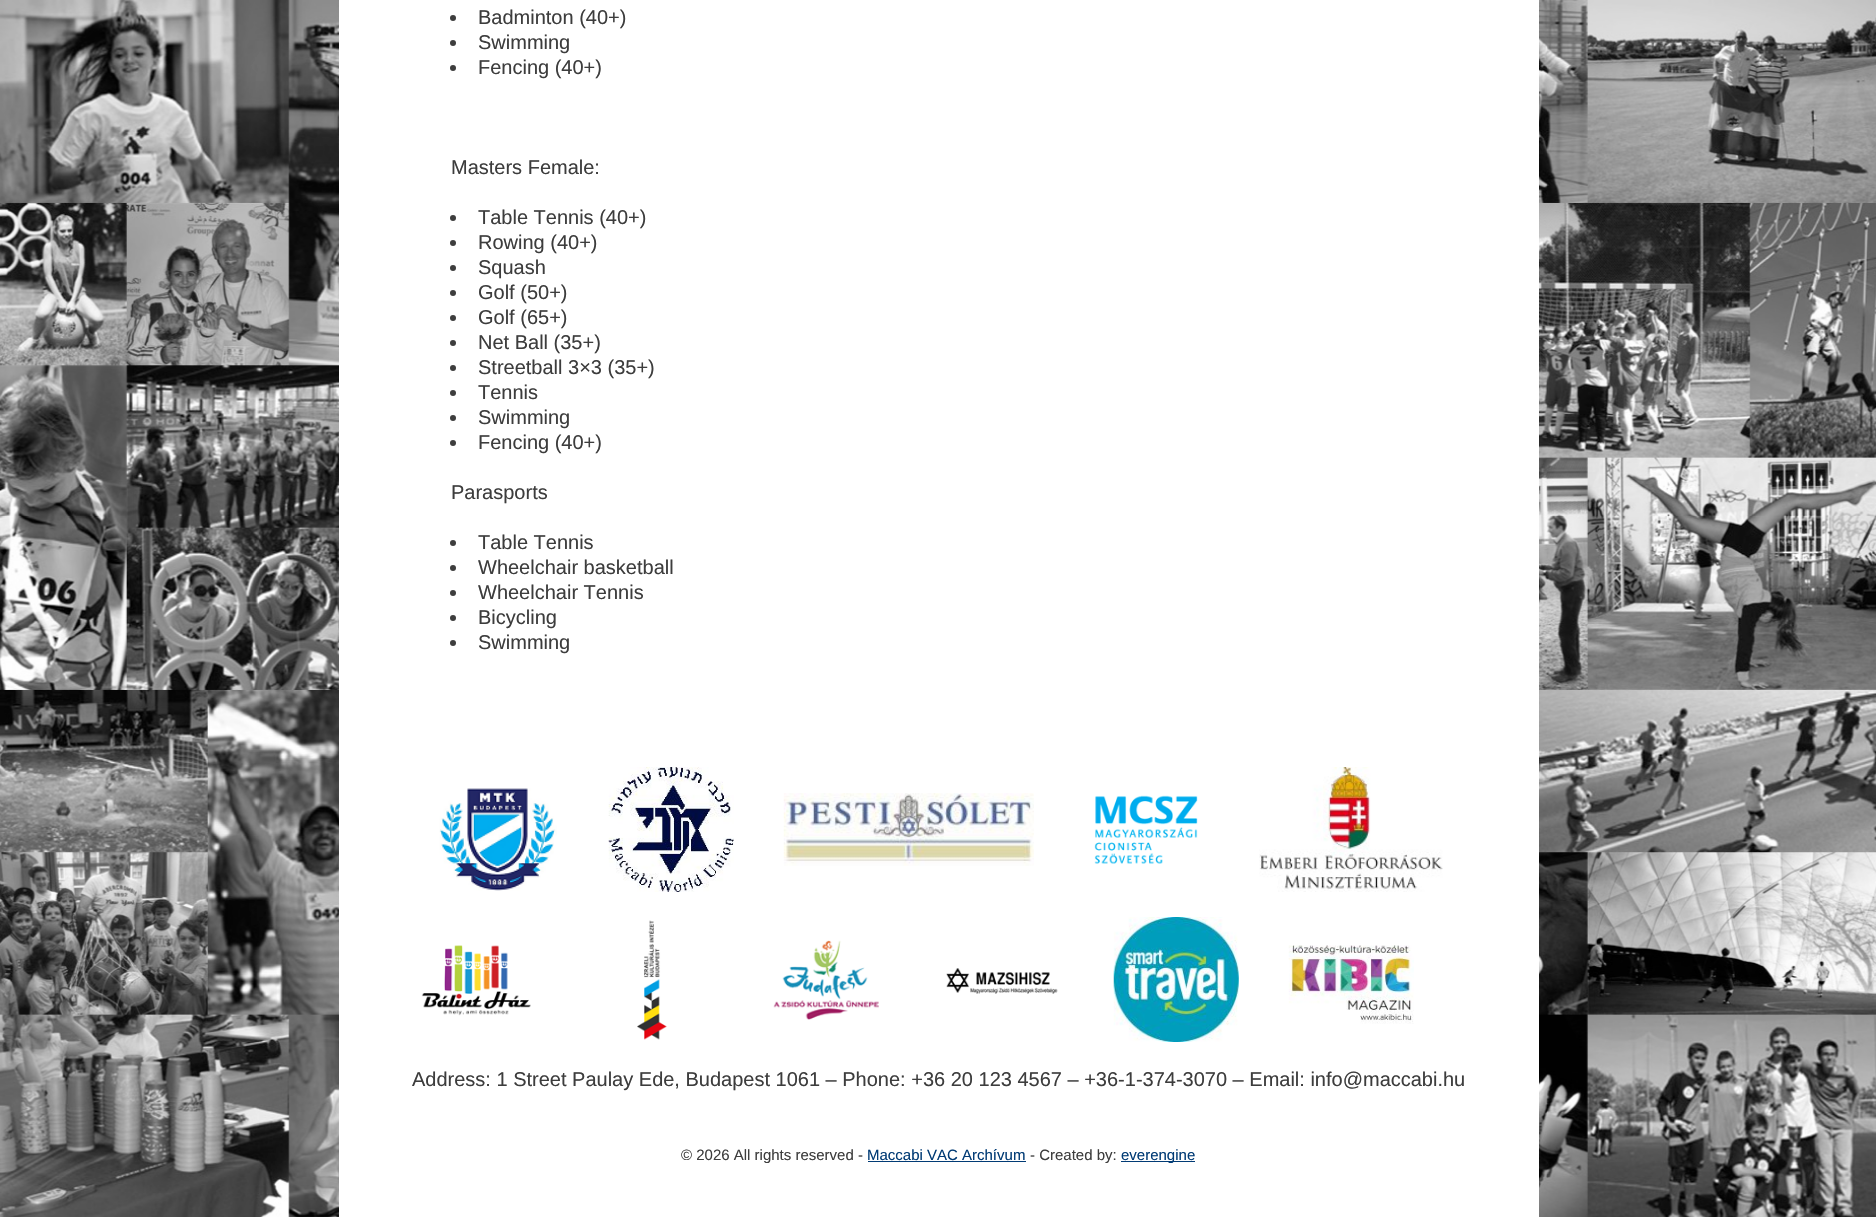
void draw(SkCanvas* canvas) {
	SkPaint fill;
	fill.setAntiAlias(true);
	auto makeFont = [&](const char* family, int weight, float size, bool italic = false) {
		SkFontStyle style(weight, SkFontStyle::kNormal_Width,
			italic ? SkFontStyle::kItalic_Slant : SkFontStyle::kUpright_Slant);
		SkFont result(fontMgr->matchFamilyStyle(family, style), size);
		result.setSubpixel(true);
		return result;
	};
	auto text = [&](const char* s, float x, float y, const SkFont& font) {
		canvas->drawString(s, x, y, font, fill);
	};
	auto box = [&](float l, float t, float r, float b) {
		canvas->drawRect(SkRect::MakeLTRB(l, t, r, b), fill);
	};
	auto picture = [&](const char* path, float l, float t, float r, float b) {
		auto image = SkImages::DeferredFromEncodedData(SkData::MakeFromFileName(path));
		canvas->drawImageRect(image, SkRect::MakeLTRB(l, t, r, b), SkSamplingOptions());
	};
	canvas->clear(0xFFFFFFFF);
	picture("image0.png", 0, 0, 1876, 1217);
	fill.setColor(0xFFFFFFFF);
	box(339, 0, 1539, 1217);
	fill.setColor(0xFF3D3D3D);
	canvas->drawCircle(453, 18, 3, fill);
	canvas->drawCircle(453, 43, 3, fill);
	canvas->drawCircle(453, 68, 3, fill);
	canvas->drawCircle(453, 218, 3, fill);
	canvas->drawCircle(453, 243, 3, fill);
	canvas->drawCircle(453, 268, 3, fill);
	canvas->drawCircle(453, 293, 3, fill);
	canvas->drawCircle(453, 318, 3, fill);
	canvas->drawCircle(453, 343, 3, fill);
	canvas->drawCircle(453, 368, 3, fill);
	canvas->drawCircle(453, 393, 3, fill);
	canvas->drawCircle(453, 418, 3, fill);
	canvas->drawCircle(453, 443, 3, fill);
	canvas->drawCircle(453, 543, 3, fill);
	canvas->drawCircle(453, 568, 3, fill);
	canvas->drawCircle(453, 593, 3, fill);
	canvas->drawCircle(453, 618, 3, fill);
	canvas->drawCircle(453, 643, 3, fill);
	picture("image1.png", 439, 788, 557, 891);
	picture("image2.png", 608, 767, 734, 892);
	picture("image3.png", 783, 793, 1034, 866);
	picture("image4.png", 1094, 795, 1198, 864);
	picture("image5.png", 1259, 767, 1443, 892);
	picture("image6.png", 421, 945, 531, 1016);
	picture("image7.png", 637, 920, 667, 1040);
	picture("image8.png", 773, 940, 879, 1020);
	picture("image9.png", 946, 968, 1058, 994);
	picture("image10.png", 1113, 917, 1239, 1042);
	picture("image11.png", 1288, 945, 1414, 1024);
	fill.setColor(0xFF013B75);
	box(868, 1161, 1026, 1162);
	box(1121, 1161, 1195, 1162);
	auto font1 = makeFont("Liberation Sans", 400, 20);
	fill.setColor(0xFF3D3D3D);
	text("Badminton (40+)", 478, 24, font1);
	text("Swimming", 478, 49, font1);
	text("Fencing (40+)", 478, 74, font1);
	text("Masters Female:", 451, 174, font1);
	text("Table Tennis (40+)", 478, 224, font1);
	text("Rowing (40+)", 478, 249, font1);
	text("Squash", 478, 274, font1);
	text("Golf (50+)", 478, 299, font1);
	text("Golf (65+)", 478, 324, font1);
	text("Net Ball (35+)", 478, 349, font1);
	text("Streetball 3×3 (35+)", 478, 374, font1);
	text("Tennis", 478, 399, font1);
	text("Swimming", 478, 424, font1);
	text("Fencing (40+)", 478, 449, font1);
	text("Parasports", 451, 499, font1);
	text("Table Tennis", 478, 549, font1);
	text("Wheelchair basketball", 478, 574, font1);
	text("Wheelchair Tennis", 478, 599, font1);
	text("Bicycling", 478, 624, font1);
	text("Swimming", 478, 649, font1);
	text("Address: 1 Street Paulay Ede, Budapest 1061 – Phone: +36 20 123 4567 – +36-1-374-3070 – Email: info@maccabi.hu", 412, 1086, font1);
	auto font2 = makeFont("Liberation Sans", 400, 15);
	text("© 2026 All rights reserved -", 681, 1160, font2);
	fill.setColor(0xFF013B75);
	text("Maccabi VAC Archívum", 867, 1160, font2);
	fill.setColor(0xFF3D3D3D);
	text("- Created by:", 1030, 1160, font2);
	fill.setColor(0xFF013B75);
	text("everengine", 1121, 1160, font2);
}
